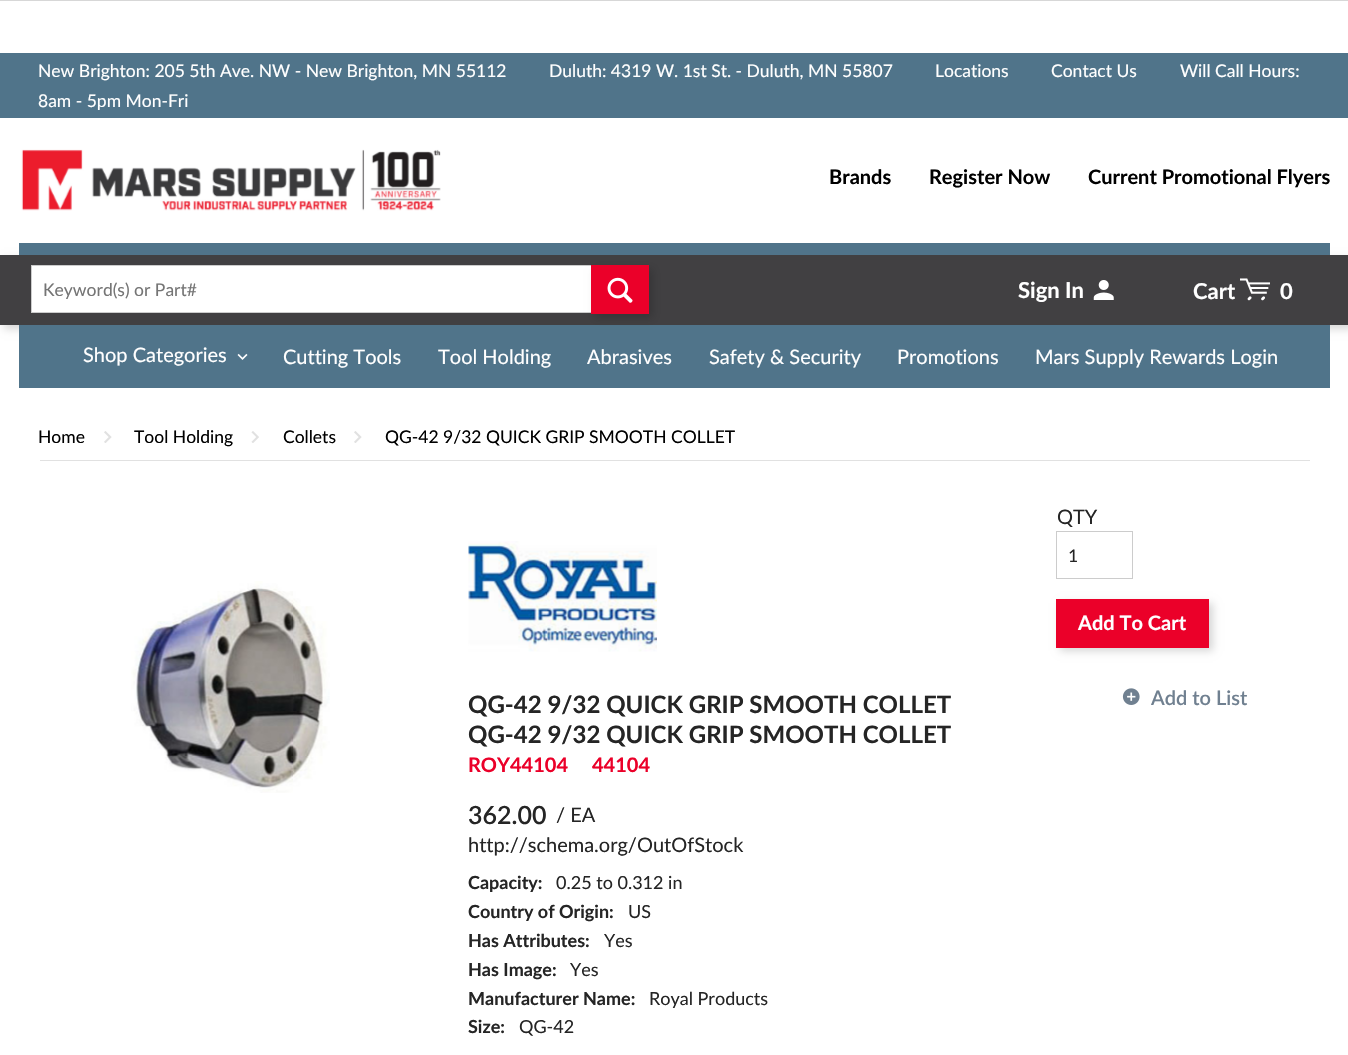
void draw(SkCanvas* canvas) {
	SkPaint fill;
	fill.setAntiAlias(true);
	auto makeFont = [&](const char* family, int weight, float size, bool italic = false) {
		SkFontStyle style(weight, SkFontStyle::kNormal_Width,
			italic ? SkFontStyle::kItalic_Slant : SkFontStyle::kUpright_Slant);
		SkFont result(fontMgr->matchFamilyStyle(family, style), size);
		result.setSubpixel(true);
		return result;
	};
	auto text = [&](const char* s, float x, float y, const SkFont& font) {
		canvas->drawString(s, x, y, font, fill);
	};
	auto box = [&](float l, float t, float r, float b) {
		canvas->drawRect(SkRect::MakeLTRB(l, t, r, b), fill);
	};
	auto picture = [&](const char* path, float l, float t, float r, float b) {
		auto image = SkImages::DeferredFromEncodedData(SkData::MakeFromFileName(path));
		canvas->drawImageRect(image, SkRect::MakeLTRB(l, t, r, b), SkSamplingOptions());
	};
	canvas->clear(0xFFFFFFFF);
	fill.setColor(0xFFD7D7D7);
	box(0, 0, 1348, 1);
	fill.setColor(0xFF50748A);
	box(0, 53, 1348, 118);
	fill.setColor(0x29000000);
	fill.setMaskFilter(SkMaskFilter::MakeBlur(kNormal_SkBlurStyle, 4));
	canvas->drawRect(SkRect::MakeLTRB(4, 259, 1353, 329), fill);
	fill.setMaskFilter(nullptr);
	fill.setColor(0xFF50748A);
	box(19, 243, 1330, 255);
	picture("image0.png", 21, 149, 441, 211);
	fill.setColor(0xFF414042);
	box(0, 255, 1348, 325);
	fill.setColor(0xFFFFFFFF);
	box(32, 266, 591, 312);
	fill.setStyle(SkPaint::kStroke_Style);
	fill.setStrokeWidth(1);
	fill.setColor(0xFFCCCCCC);
	canvas->drawRect(SkRect::MakeLTRB(31.5f, 265.5f, 634.5f, 312.5f), fill);
	fill.setStyle(SkPaint::kFill_Style);
	fill.setColor(0xFF50748A);
	box(19, 325, 1330, 388);
	fill.setColor(0x29000000);
	fill.setMaskFilter(SkMaskFilter::MakeBlur(kNormal_SkBlurStyle, 4));
	canvas->drawRect(SkRect::MakeLTRB(595, 269, 653, 318), fill);
	fill.setMaskFilter(nullptr);
	fill.setColor(0xFFEB0029);
	box(591, 265, 649, 314);
	picture("image1.png", 607, 277, 633, 303);
	picture("image2.png", 1093, 280, 1114, 300);
	picture("image3.png", 1240, 278, 1270, 301);
	picture("image4.png", 237, 353, 248, 360);
	fill.setColor(0xFFE1E1E1);
	box(40, 460, 1310, 461);
	picture("image5.png", 104, 431, 112, 443);
	picture("image6.png", 251, 431, 259, 443);
	picture("image5.png", 354, 431, 362, 443);
	fill.setStyle(SkPaint::kStroke_Style);
	fill.setColor(0xFFCCCCCC);
	canvas->drawRect(SkRect::MakeLTRB(1056.5f, 531.5f, 1132.5f, 578.5f), fill);
	fill.setStyle(SkPaint::kFill_Style);
	fill.setColor(0x29000000);
	fill.setMaskFilter(SkMaskFilter::MakeBlur(kNormal_SkBlurStyle, 4));
	canvas->drawRect(SkRect::MakeLTRB(1060, 603, 1213, 651), fill);
	fill.setMaskFilter(nullptr);
	fill.setColor(0xFFEB0029);
	box(1056, 599, 1209, 648);
	picture("image7.png", 1122, 688, 1140, 705);
	picture("image8.png", 131, 581, 330, 793);
	picture("image9.png", 468, 541, 657, 652);
	auto font1 = makeFont("Lato", 400, 17.5f);
	fill.setColor(0xFFFFFFFF);
	text("New Brighton: 205 5th Ave. NW - New Brighton, MN 55112", 38, 77, font1);
	text("Duluth: 4319 W. 1st St. - Duluth, MN 55807", 549, 77, font1);
	text("Locations", 935, 77, font1);
	text("Contact Us", 1051, 77, font1);
	text("Will Call Hours:", 1180, 77, font1);
	text("8am - 5pm Mon-Fri", 38, 107, font1);
	auto font2 = makeFont("Lato", 700, 20);
	fill.setColor(0xFF000000);
	text("Brands", 829, 184, font2);
	text("Register Now", 929, 184, font2);
	text("Current Promotional Flyers", 1088, 184, font2);
	fill.setColor(0xFF757575);
	text("Keyword(s) or Part#", 43, 296, font1);
	auto font3 = makeFont("Lato", 700, 22);
	fill.setColor(0xFFFFFFFF);
	text("Sign In", 1018, 298, font3);
	text("Cart", 1193, 299, font3);
	text("0", 1280, 299, font3);
	auto font4 = makeFont("Lato", 400, 20);
	text("Shop Categories", 83, 362, font4);
	text("Cutting Tools", 283, 364, font4);
	text("Tool Holding", 438, 364, font4);
	text("Abrasives", 587, 364, font4);
	text("Safety & Security", 709, 364, font4);
	text("Promotions", 897, 364, font4);
	text("Mars Supply Rewards Login", 1035, 364, font4);
	fill.setColor(0xFF000000);
	text("Home", 38, 443, font1);
	text("Tool Holding", 134, 443, font1);
	text("Collets", 283, 443, font1);
	text("QG-42 9/32 QUICK GRIP SMOOTH COLLET", 385, 443, font1);
	fill.setColor(0xFF252525);
	text("QTY", 1057, 524, font4);
	text("1", 1068, 562, font1);
	fill.setColor(0xFFFFFFFF);
	text("Add To Cart", 1078, 630, font2);
	auto font5 = makeFont("Lato", 600, 20);
	fill.setColor(0xFF708090);
	text("Add to List", 1151, 705, font5);
	auto font6 = makeFont("Lato", 700, 24);
	fill.setColor(0xFF252525);
	text("QG-42 9/32 QUICK GRIP SMOOTH COLLET", 468, 713, font6);
	text("QG-42 9/32 QUICK GRIP SMOOTH COLLET", 468, 743, font6);
	fill.setColor(0xFFEB0029);
	text("ROY44104", 468, 772, font2);
	text("44104", 592, 772, font2);
	auto font7 = makeFont("Lato", 600, 25);
	fill.setColor(0xFF252525);
	text("362.00", 468, 824, font7);
	text("/ EA", 556, 822, font4);
	text("http://schema.org/OutOfStock", 468, 852, font4);
	auto font8 = makeFont("Lato", 700, 18);
	text("Capacity:", 468, 889, font8);
	auto font9 = makeFont("Lato", 400, 18);
	text("0.25 to 0.312 in", 556, 889, font9);
	text("Country of Origin:", 468, 918, font8);
	text("US", 628, 918, font9);
	text("Has Attributes:", 468, 947, font8);
	text("Yes", 604, 947, font9);
	text("Has Image:", 468, 976, font8);
	text("Yes", 570, 976, font9);
	text("Manufacturer Name:", 468, 1005, font8);
	text("Royal Products", 649, 1005, font9);
	text("Size:", 468, 1033, font8);
	text("QG-42", 519, 1033, font9);
}
